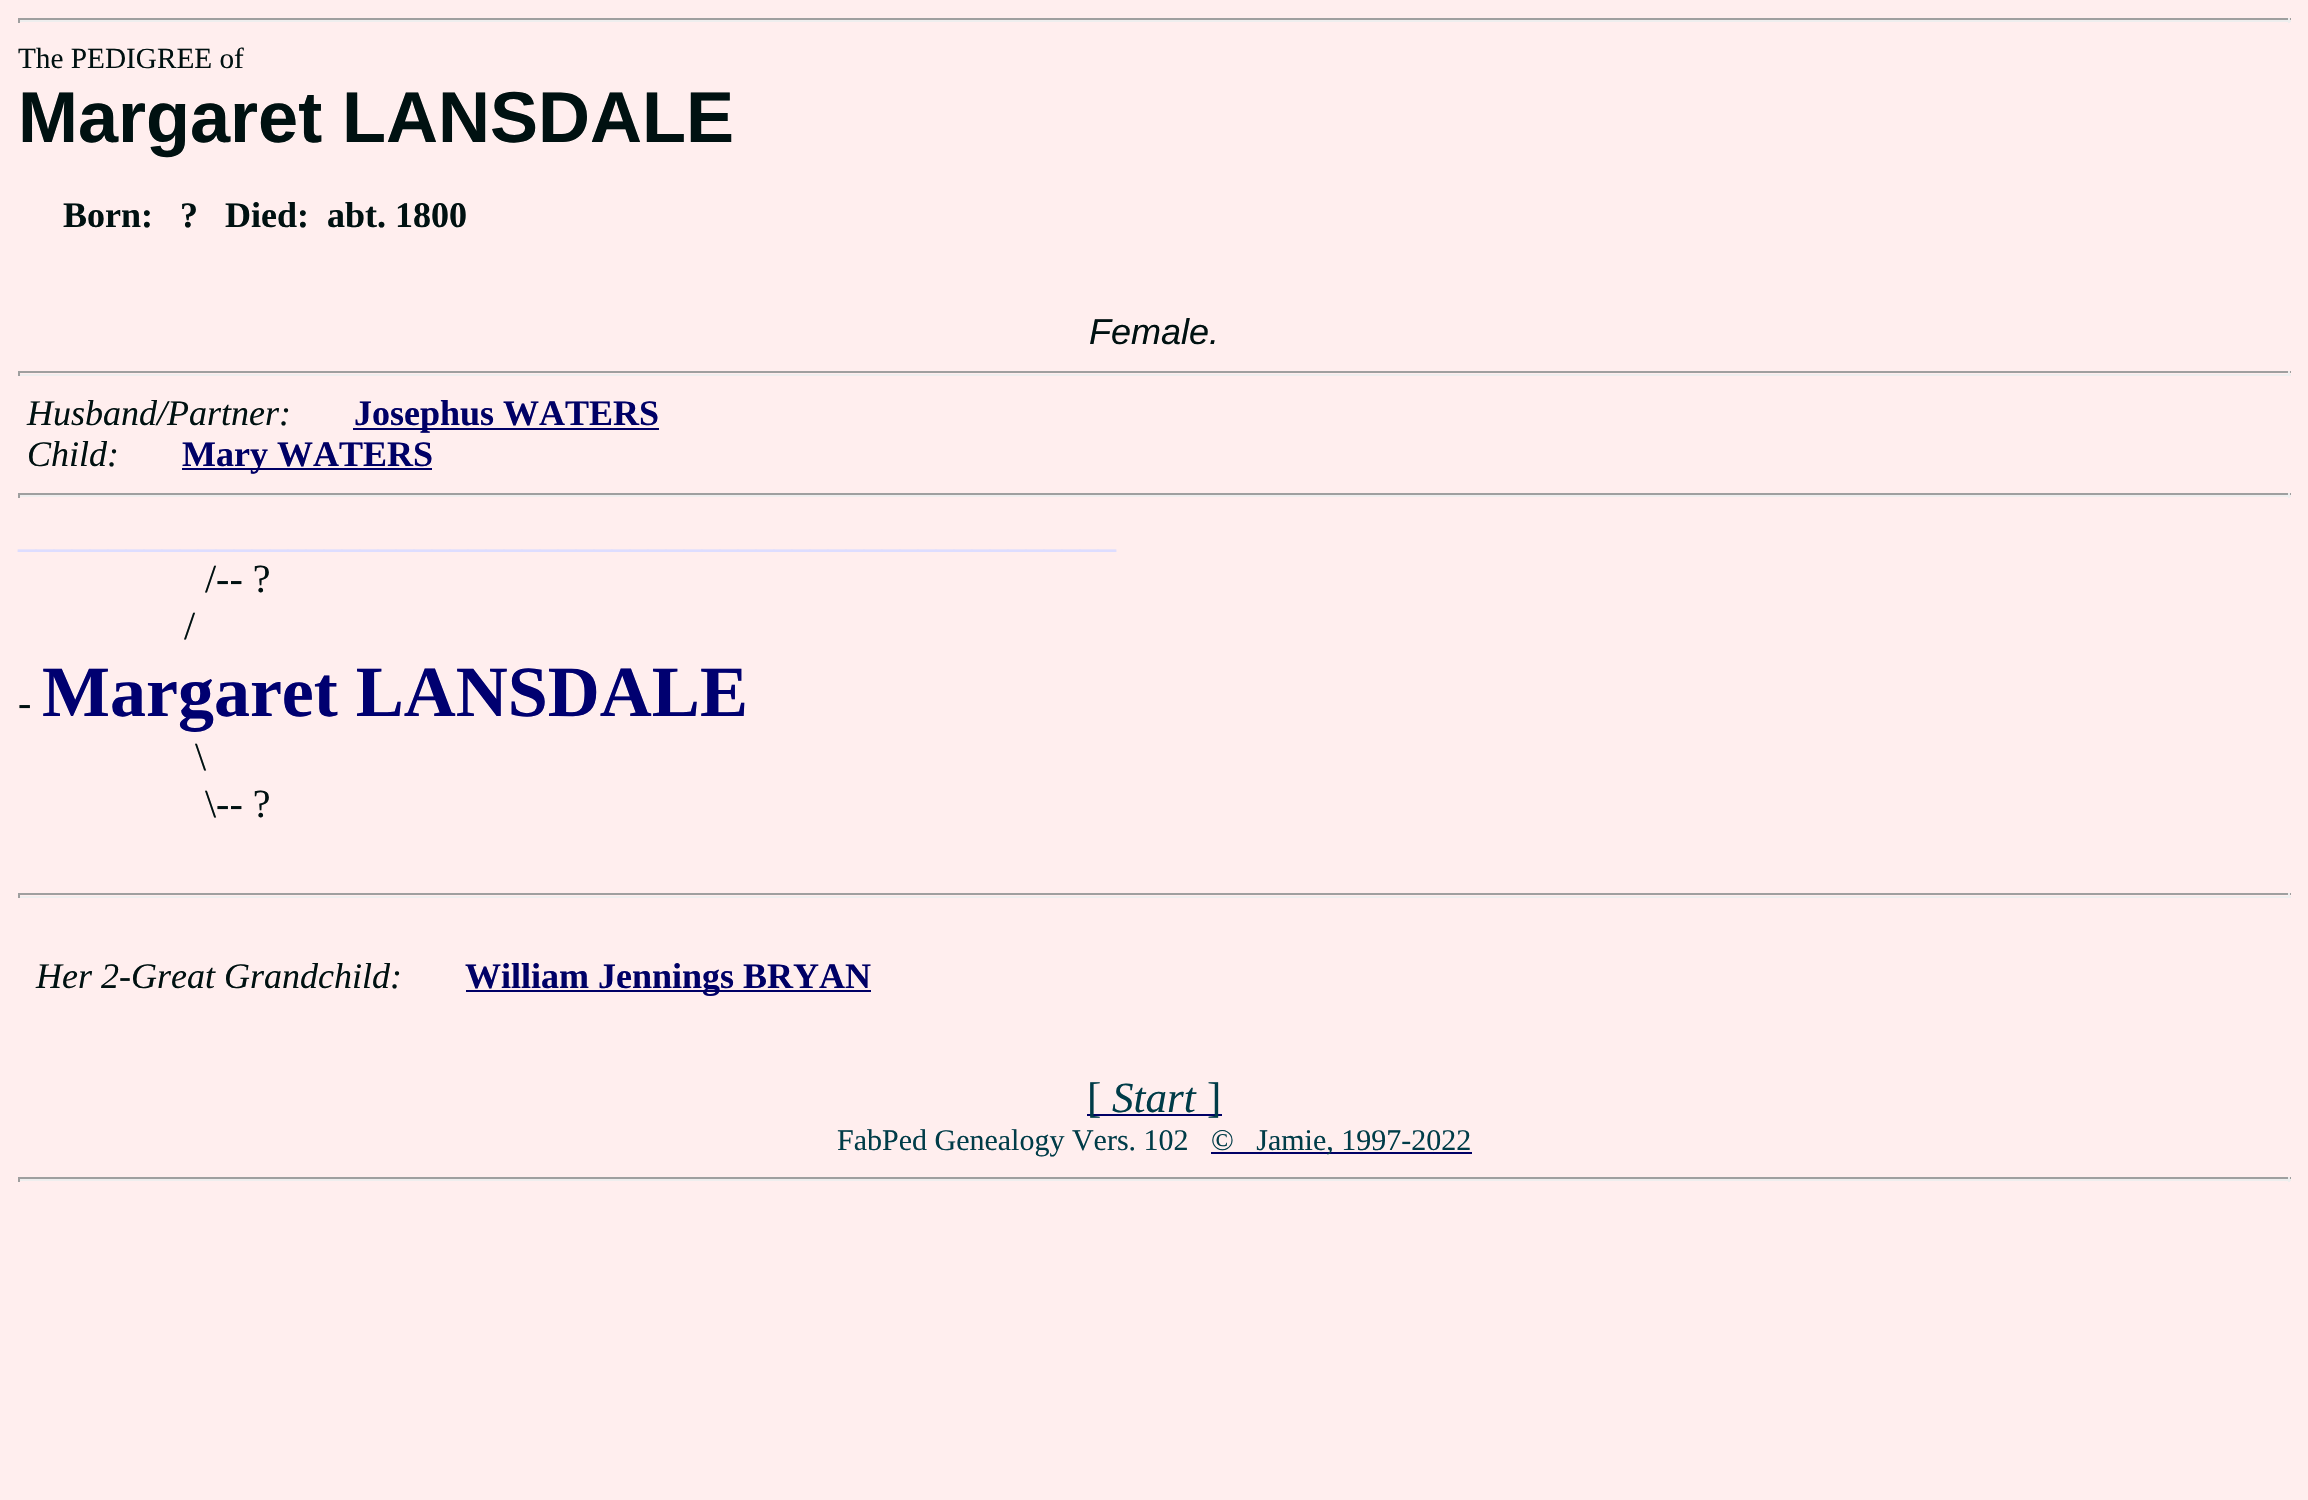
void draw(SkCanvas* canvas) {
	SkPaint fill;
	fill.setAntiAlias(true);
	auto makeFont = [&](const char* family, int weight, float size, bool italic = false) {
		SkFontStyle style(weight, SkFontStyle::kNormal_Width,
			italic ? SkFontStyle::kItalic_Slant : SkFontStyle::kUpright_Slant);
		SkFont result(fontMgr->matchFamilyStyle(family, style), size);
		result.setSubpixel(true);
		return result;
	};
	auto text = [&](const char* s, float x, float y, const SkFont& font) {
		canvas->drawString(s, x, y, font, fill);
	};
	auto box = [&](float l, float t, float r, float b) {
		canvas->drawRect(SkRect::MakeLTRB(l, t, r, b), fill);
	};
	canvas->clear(0xFFFFEEEE);
	fill.setColor(0xFF9F9F9F);
	box(18, 18, 2291, 20);
	fill.setColor(0xFFEEEEEE);
	box(2288, 18, 2290, 23);
	box(18, 20, 2291, 22);
	fill.setColor(0xFF9F9F9F);
	box(18, 18, 20, 23);
	box(18, 371, 2291, 373);
	fill.setColor(0xFFEEEEEE);
	box(2288, 371, 2290, 376);
	box(18, 374, 2291, 376);
	fill.setColor(0xFF9F9F9F);
	box(18, 371, 20, 376);
	fill.setColor(0xFF000066);
	box(353, 428, 659, 430);
	box(182, 468, 432, 470);
	fill.setColor(0xFF9F9F9F);
	box(18, 493, 2291, 495);
	fill.setColor(0xFFEEEEEE);
	box(2288, 493, 2290, 498);
	box(18, 495, 2291, 497);
	fill.setColor(0xFF9F9F9F);
	box(18, 493, 20, 498);
	box(18, 893, 2291, 895);
	fill.setColor(0xFFEEEEEE);
	box(2288, 893, 2290, 898);
	box(18, 896, 2291, 898);
	fill.setColor(0xFF9F9F9F);
	box(18, 893, 20, 898);
	fill.setColor(0xFF000066);
	box(466, 990, 871, 992);
	box(1087, 1114, 1222, 1116);
	box(1211, 1152, 1472, 1154);
	fill.setColor(0xFF9F9F9F);
	box(18, 1177, 2291, 1179);
	fill.setColor(0xFFEEEEEE);
	box(2288, 1177, 2290, 1182);
	box(18, 1179, 2291, 1181);
	fill.setColor(0xFF9F9F9F);
	box(18, 1177, 20, 1182);
	auto font1 = makeFont("Liberation Serif", 400, 29.25f);
	fill.setColor(0xFF001111);
	text("The PEDIGREE of", 18, 68, font1);
	auto font2 = makeFont("Liberation Sans", 700, 72);
	text("Margaret LANSDALE", 18, 142, font2);
	auto font3 = makeFont("Liberation Serif", 700, 36);
	text("Born:", 63, 227, font3);
	text("?   Died:", 180, 227, font3);
	text("abt. 1800", 327, 227, font3);
	auto font4 = makeFont("Liberation Sans", 400, 36, true);
	text("Female.", 1089, 344, font4);
	auto font5 = makeFont("Liberation Serif", 400, 36, true);
	text("Husband/Partner:", 27, 425, font5);
	fill.setColor(0xFF000066);
	text("Josephus WATERS", 354, 425, font3);
	fill.setColor(0xFF001111);
	text("Child:", 27, 466, font5);
	fill.setColor(0xFF000066);
	text("Mary WATERS", 182, 466, font3);
	fill.setColor(0xFFDDDDFF);
	text("_____________________________________________________________", 18, 547, font3);
	auto font6 = makeFont("Liberation Serif", 400, 40);
	fill.setColor(0xFF001111);
	text("/-- ?", 205, 592, font6);
	text("/", 184, 639, font6);
	text("-", 18, 716, font6);
	auto font7 = makeFont("Liberation Serif", 700, 72);
	fill.setColor(0xFF000070);
	text("Margaret LANSDALE", 42, 716, font7);
	fill.setColor(0xFF001111);
	text("\\", 195, 770, font6);
	text("\\-- ?", 205, 817, font6);
	text("Her 2-Great Grandchild:", 36, 988, font5);
	fill.setColor(0xFF000066);
	text("William Jennings BRYAN", 465, 988, font3);
	auto font8 = makeFont("Liberation Serif", 400, 43);
	fill.setColor(0xFF003C48);
	text("[", 1087, 1112, font8);
	auto font9 = makeFont("Liberation Serif", 400, 43, true);
	text("Start", 1112, 1112, font9);
	text("]", 1207, 1112, font8);
	auto font10 = makeFont("Liberation Serif", 400, 30);
	text("FabPed Genealogy Vers. 102", 837, 1150, font10);
	text("©   Jamie, 1997-2022", 1211, 1150, font10);
}
